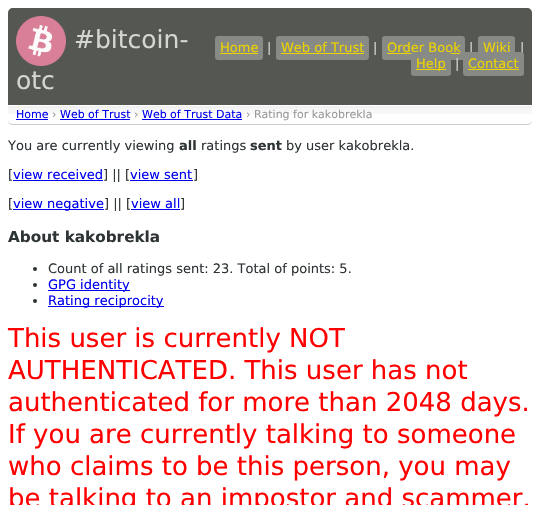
void draw(SkCanvas* canvas) {
	SkPaint fill;
	fill.setAntiAlias(true);
	auto makeFont = [&](const char* family, int weight, float size, bool italic = false) {
		SkFontStyle style(weight, SkFontStyle::kNormal_Width,
			italic ? SkFontStyle::kItalic_Slant : SkFontStyle::kUpright_Slant);
		SkFont result(fontMgr->matchFamilyStyle(family, style), size);
		result.setSubpixel(true);
		return result;
	};
	auto text = [&](const char* s, float x, float y, const SkFont& font) {
		canvas->drawString(s, x, y, font, fill);
	};
	auto box = [&](float l, float t, float r, float b) {
		canvas->drawRect(SkRect::MakeLTRB(l, t, r, b), fill);
	};
	auto roundBox = [&](float l, float t, float r, float b, float radius) {
		canvas->drawRoundRect(SkRect::MakeLTRB(l, t, r, b), radius, radius, fill);
	};
	auto picture = [&](const char* path, float l, float t, float r, float b) {
		auto image = SkImages::DeferredFromEncodedData(SkData::MakeFromFileName(path));
		canvas->drawImageRect(image, SkRect::MakeLTRB(l, t, r, b), SkSamplingOptions());
	};
	canvas->clear(0xFFFFFFFF);
	fill.setColor(0xFF555753);
	canvas->drawPath(SkPathBuilder().moveTo(13, 8).lineTo(527, 8).cubicTo(530, 8, 532, 10, 532, 13).lineTo(532, 105).lineTo(8, 105).lineTo(8, 13).cubicTo(8, 10, 10, 8, 13, 8).close().detach(), fill);
	picture("image0.png", 16, 16, 66, 66);
	fill.setColor(0xFF888A85);
	roundBox(215, 36, 263, 60, 3);
	fill.setColor(0xFFEDD400);
	box(220, 53, 258, 54);
	fill.setColor(0xFF888A85);
	roundBox(276, 36, 369, 60, 3);
	fill.setColor(0xFFEDD400);
	box(281, 53, 364, 54);
	fill.setColor(0xFF888A85);
	roundBox(382, 36, 465, 60, 3);
	fill.setColor(0xFFEDD400);
	box(387, 53, 460, 54);
	fill.setColor(0xFF888A85);
	roundBox(478, 36, 515, 60, 3);
	picture("image1.png", 8, 106, 532, 114);
	fill.setColor(0xFFCCCCCC);
	canvas->drawPath(SkPathBuilder().moveTo(13, 125).lineTo(527, 125).cubicTo(530, 125, 532, 123, 532, 120).cubicTo(532, 122, 530, 124, 527, 124).lineTo(13, 124).cubicTo(10, 124, 8, 122, 8, 120).cubicTo(8, 123, 10, 125, 13, 125).close().detach(), fill);
	fill.setColor(0xFF0000EE);
	box(16, 119, 48, 120);
	box(60, 119, 130, 120);
	box(142, 119, 242, 120);
	box(13, 180, 103, 181);
	box(130, 180, 193, 181);
	box(13, 209, 104, 210);
	box(131, 209, 180, 210);
	fill.setColor(0xFF2E3436);
	canvas->drawCircle(35, 269, 2, fill);
	canvas->drawCircle(35, 285, 2, fill);
	fill.setColor(0xFF0000EE);
	box(48, 290, 130, 291);
	fill.setColor(0xFF2E3436);
	canvas->drawCircle(35, 301, 2, fill);
	fill.setColor(0xFF0000EE);
	box(48, 306, 164, 307);
	auto font1 = makeFont("DejaVu Sans", 400, 25);
	fill.setColor(0xFFD3D7CF);
	text("#bitcoin-", 74, 48, font1);
	text("otc", 16, 89, font1);
	auto font2 = makeFont("DejaVu Sans", 400, 13);
	fill.setColor(0xFFEDD400);
	text("Home", 220, 52, font2);
	fill.setColor(0xFFD3D7CF);
	text("|", 267, 52, font2);
	fill.setColor(0xFFEDD400);
	text("Web of Trust", 281, 52, font2);
	fill.setColor(0xFFD3D7CF);
	text("|", 373, 52, font2);
	fill.setColor(0xFFEDD400);
	text("Order Book", 387, 52, font2);
	fill.setColor(0xFFD3D7CF);
	text("|", 469, 52, font2);
	fill.setColor(0xFFEDD400);
	text("Wiki", 483, 52, font2);
	fill.setColor(0xFFD3D7CF);
	text("|", 520, 52, font2);
	fill.setColor(0xFF888A85);
	roundBox(411, 52, 451, 76, 3);
	fill.setColor(0xFFEDD400);
	box(416, 69, 446, 70);
	text("Help", 416, 68, font2);
	fill.setColor(0xFFD3D7CF);
	text("|", 455, 68, font2);
	fill.setColor(0xFF888A85);
	roundBox(463, 52, 524, 76, 3);
	fill.setColor(0xFFEDD400);
	text("Contact", 468, 68, font2);
	box(468, 69, 519, 70);
	auto font3 = makeFont("DejaVu Sans", 400, 11);
	fill.setColor(0xFF0000EE);
	text("Home", 16, 118, font3);
	fill.setColor(0xFF999999);
	text("›", 52, 118, font3);
	fill.setColor(0xFF0000EE);
	text("Web of Trust", 60, 118, font3);
	fill.setColor(0xFF999999);
	text("›", 134, 118, font3);
	fill.setColor(0xFF0000EE);
	text("Web of Trust Data", 142, 118, font3);
	fill.setColor(0xFF999999);
	text("› Rating for kakobrekla", 246, 118, font3);
	fill.setColor(0xFF2E3436);
	text("You are currently viewing", 8, 150, font2);
	auto font4 = makeFont("DejaVu Sans", 700, 13);
	text("all", 179, 150, font4);
	text("ratings", 201, 150, font2);
	text("sent", 250, 150, font4);
	text("by user kakobrekla.", 286, 150, font2);
	text("[", 8, 179, font2);
	fill.setColor(0xFF0000EE);
	text("view received", 13, 179, font2);
	fill.setColor(0xFF2E3436);
	text("] || [", 103, 179, font2);
	fill.setColor(0xFF0000EE);
	text("view sent", 130, 179, font2);
	fill.setColor(0xFF2E3436);
	text("]", 193, 179, font2);
	text("[", 8, 208, font2);
	fill.setColor(0xFF0000EE);
	text("view negative", 13, 208, font2);
	fill.setColor(0xFF2E3436);
	text("] || [", 104, 208, font2);
	fill.setColor(0xFF0000EE);
	text("view all", 131, 208, font2);
	fill.setColor(0xFF2E3436);
	text("]", 180, 208, font2);
	auto font5 = makeFont("DejaVu Sans", 700, 15.25f);
	text("About kakobrekla", 8, 242, font5);
	text("Count of all ratings sent: 23. Total of points: 5.", 48, 273, font2);
	fill.setColor(0xFF0000EE);
	text("GPG identity", 48, 289, font2);
	text("Rating reciprocity", 48, 305, font2);
	auto font6 = makeFont("DejaVu Sans", 400, 26);
	fill.setColor(0xFFFF0000);
	text("This user is currently NOT", 8, 347, font6);
	text("AUTHENTICATED. This user has not", 8, 379, font6);
	text("authenticated for more than 2048 days.", 8, 411, font6);
	text("If you are currently talking to someone", 8, 443, font6);
	text("who claims to be this person, you may", 8, 475, font6);
	text("be talking to an impostor and scammer.", 8, 507, font6);
}
